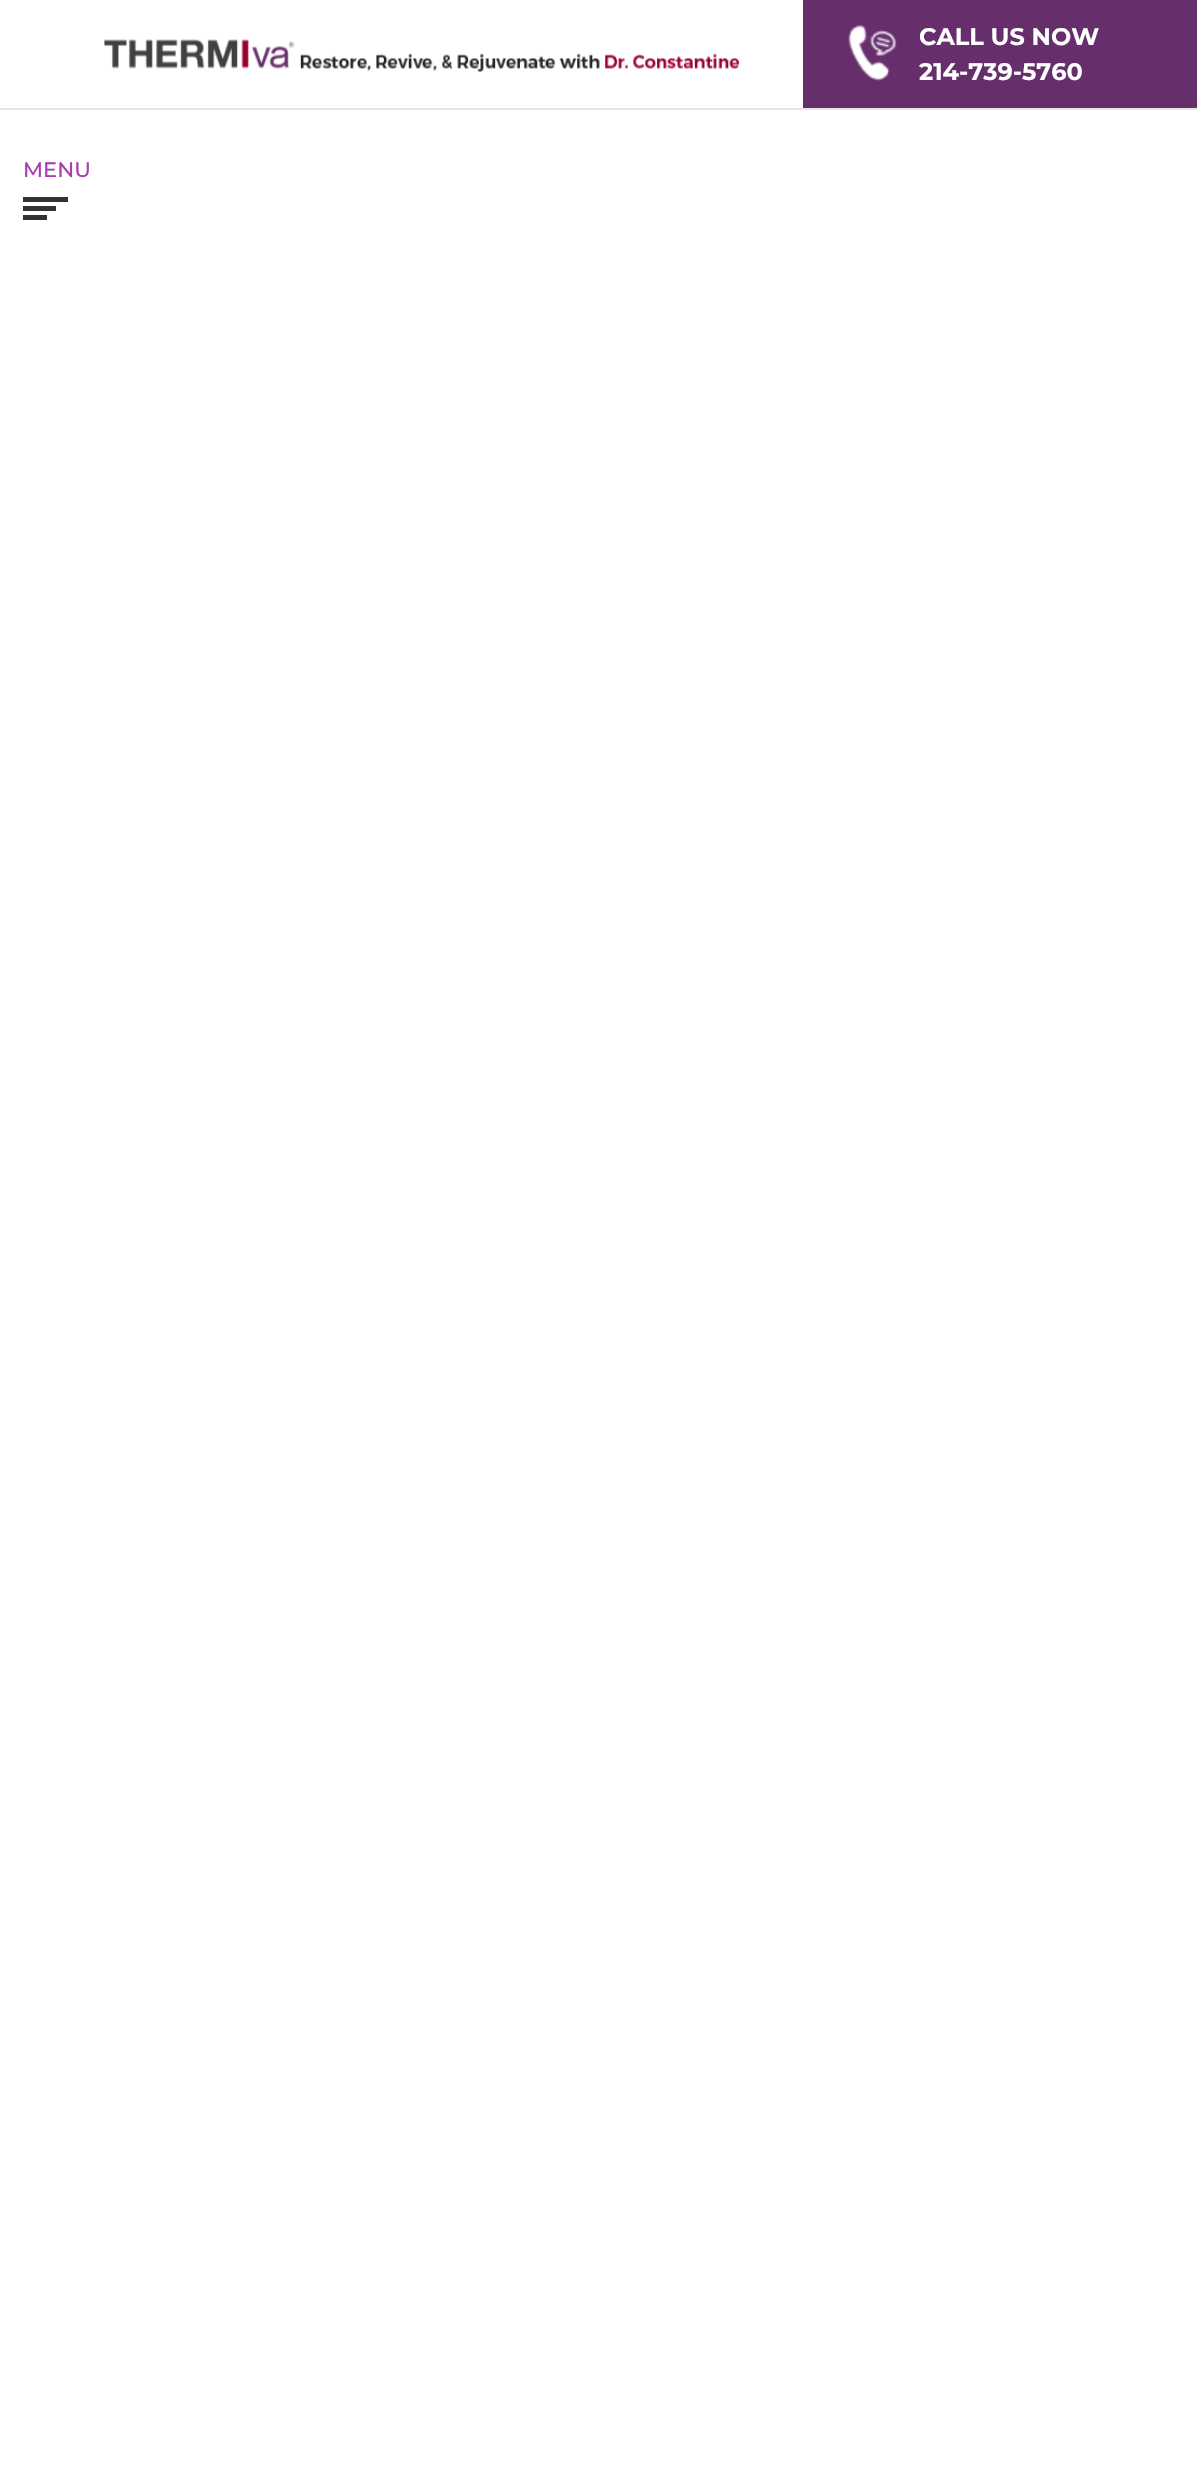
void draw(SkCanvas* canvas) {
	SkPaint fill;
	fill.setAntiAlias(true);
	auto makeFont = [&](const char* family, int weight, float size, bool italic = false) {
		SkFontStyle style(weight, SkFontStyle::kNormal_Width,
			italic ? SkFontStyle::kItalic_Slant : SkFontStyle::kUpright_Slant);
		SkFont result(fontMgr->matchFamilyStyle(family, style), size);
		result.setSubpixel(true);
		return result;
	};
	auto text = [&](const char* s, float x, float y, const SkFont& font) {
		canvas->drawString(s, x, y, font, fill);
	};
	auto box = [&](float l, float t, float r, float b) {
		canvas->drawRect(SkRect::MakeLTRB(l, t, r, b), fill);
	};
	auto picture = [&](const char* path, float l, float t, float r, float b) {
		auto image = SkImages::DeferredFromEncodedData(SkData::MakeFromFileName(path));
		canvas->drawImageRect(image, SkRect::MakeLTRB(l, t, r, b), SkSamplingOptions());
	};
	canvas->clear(0xFFFFFFFF);
	fill.setColor(0xFFE6E6E6);
	box(0, 108, 1197, 110);
	picture("image0.png", 104, 39, 740, 72);
	fill.setColor(0xFF672E6C);
	box(803, 0, 1197, 108);
	picture("image1.png", 848, 24, 897, 81);
	fill.setColor(0xFF333333);
	box(23, 197, 68, 202);
	box(23, 206, 56, 211);
	box(23, 215, 47, 220);
	auto font1 = makeFont("Montserrat", 700, 24);
	fill.setColor(0xFFFFFFFF);
	text("CALL US NOW", 919, 45, font1);
	text("214-739-5760", 919, 80, font1);
	auto font2 = makeFont("Montserrat", 500, 21);
	fill.setColor(0xFFA73EB1);
	text("MENU", 23, 177, font2);
}
